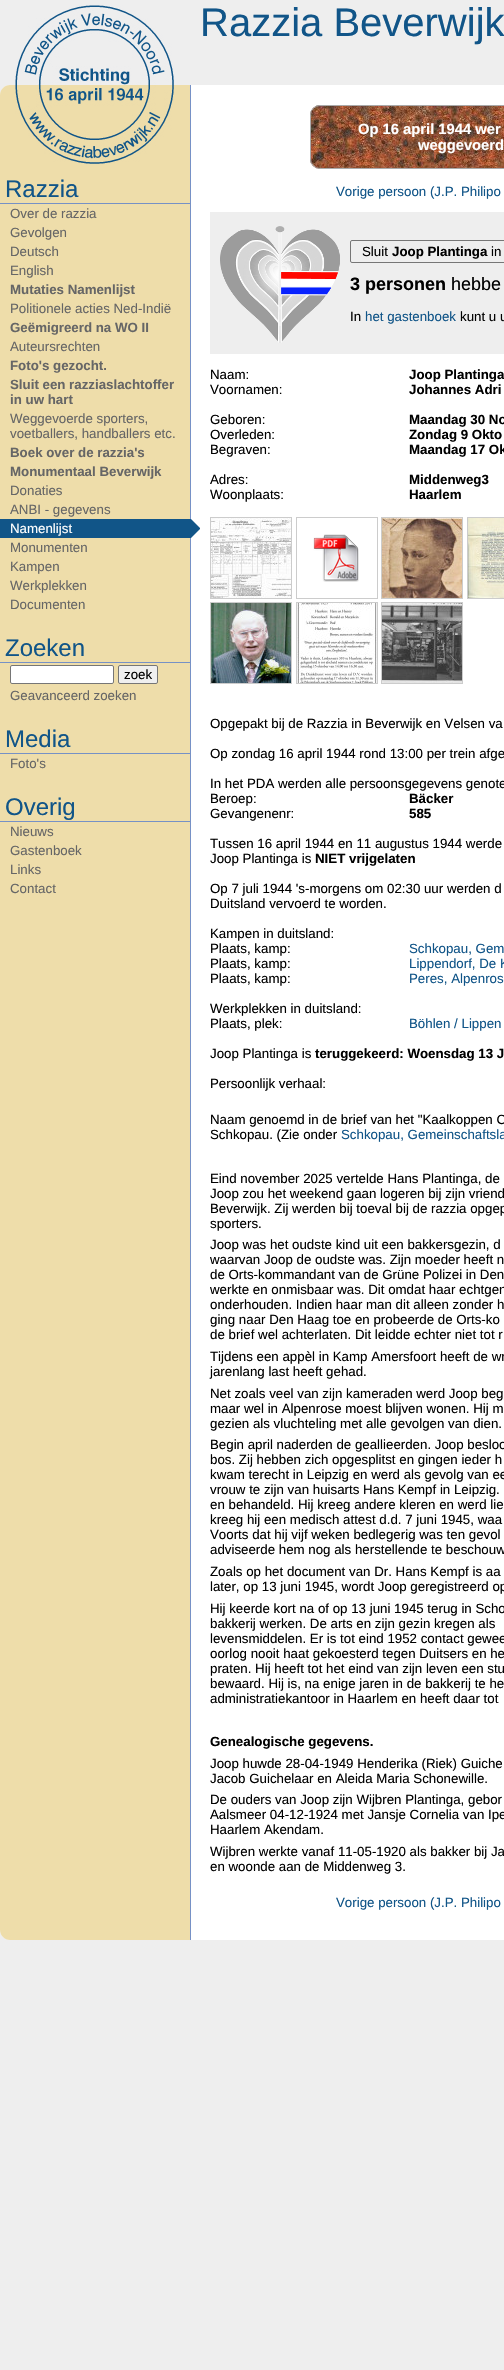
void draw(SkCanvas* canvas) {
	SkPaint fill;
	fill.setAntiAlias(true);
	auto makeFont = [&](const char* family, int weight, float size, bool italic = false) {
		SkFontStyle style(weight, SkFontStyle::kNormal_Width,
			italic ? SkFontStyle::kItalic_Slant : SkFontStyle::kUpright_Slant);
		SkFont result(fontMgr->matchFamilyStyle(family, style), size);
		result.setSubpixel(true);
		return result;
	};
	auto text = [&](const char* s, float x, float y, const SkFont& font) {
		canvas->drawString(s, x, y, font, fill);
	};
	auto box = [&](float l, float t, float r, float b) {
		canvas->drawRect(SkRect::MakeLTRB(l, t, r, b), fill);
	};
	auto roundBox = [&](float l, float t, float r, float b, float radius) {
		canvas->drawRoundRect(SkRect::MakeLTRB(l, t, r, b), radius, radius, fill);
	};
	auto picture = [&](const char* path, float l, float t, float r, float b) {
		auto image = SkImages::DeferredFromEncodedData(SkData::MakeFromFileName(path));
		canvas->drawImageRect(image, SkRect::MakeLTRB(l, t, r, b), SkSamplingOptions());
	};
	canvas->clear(0xFFEEEEEE);
	fill.setColor(0xFFFFFFFF);
	roundBox(0, 85, 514, 1940, 10);
	fill.setColor(0xFFEEDDAA);
	canvas->drawPath(SkPathBuilder().moveTo(10, 85).lineTo(191, 85).lineTo(191, 1940).lineTo(10, 1940).cubicTo(4.5f, 1940, 0, 1935.5f, 0, 1930).lineTo(0, 95).cubicTo(0, 89.5f, 4.5f, 85, 10, 85).close().detach(), fill);
	fill.setColor(0xFF7691C6);
	box(190, 85, 191, 1940);
	picture("image0.png", 15, 5, 174, 164);
	box(0, 203, 190, 204);
	fill.setColor(0xFF115588);
	box(0, 519, 190, 538);
	picture("image1.png", 190, 519, 200, 538);
	fill.setColor(0xFF7691C6);
	box(0, 662, 190, 663);
	fill.setColor(0xFFFFFFFF);
	canvas->drawRoundRect(SkRect::MakeLTRB(10.5f, 665.5f, 113.5f, 683.5f), 1.5f, 1.5f, fill);
	fill.setStyle(SkPaint::kStroke_Style);
	fill.setStrokeWidth(1);
	fill.setColor(0xFF767676);
	canvas->drawRoundRect(SkRect::MakeLTRB(10.5f, 665.5f, 113.5f, 683.5f), 1.5f, 1.5f, fill);
	fill.setStyle(SkPaint::kFill_Style);
	fill.setColor(0xFFEFEFEF);
	canvas->drawRoundRect(SkRect::MakeLTRB(118.5f, 665.5f, 157.5f, 683.5f), 1.5f, 1.5f, fill);
	fill.setStyle(SkPaint::kStroke_Style);
	fill.setColor(0xFF767676);
	canvas->drawRoundRect(SkRect::MakeLTRB(118.5f, 665.5f, 157.5f, 683.5f), 1.5f, 1.5f, fill);
	fill.setStyle(SkPaint::kFill_Style);
	fill.setColor(0xFF7691C6);
	box(0, 753, 190, 754);
	box(0, 821, 190, 822);
	picture("image2.png", 310, 105, 504, 169);
	fill.setStyle(SkPaint::kStroke_Style);
	fill.setColor(0xFFAAAAAA);
	canvas->drawRoundRect(SkRect::MakeLTRB(310.5f, 105.5f, 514.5f, 168.5f), 9.5f, 9.5f, fill);
	fill.setStyle(SkPaint::kFill_Style);
	fill.setColor(0xFFEEEEEE);
	box(210, 212, 504, 354);
	picture("image3.png", 220, 226, 340, 343);
	fill.setStyle(SkPaint::kStroke_Style);
	fill.setColor(0xFF767676);
	canvas->drawRoundRect(SkRect::MakeLTRB(350.5f, 240.5f, 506.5f, 262.5f), 1.5f, 1.5f, fill);
	fill.setColor(0xFFCCCCCC);
	canvas->drawRect(SkRect::MakeLTRB(210.5f, 517.5f, 291.5f, 598.5f), fill);
	canvas->drawRect(SkRect::MakeLTRB(296.5f, 517.5f, 377.5f, 598.5f), fill);
	canvas->drawRect(SkRect::MakeLTRB(381.5f, 517.5f, 462.5f, 598.5f), fill);
	canvas->drawRect(SkRect::MakeLTRB(467.5f, 517.5f, 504.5f, 598.5f), fill);
	picture("image4.png", 211, 518, 291, 598);
	picture("image5.png", 313, 534, 359, 582);
	picture("image6.png", 382, 518, 462, 598);
	picture("image7.png", 468, 518, 504, 598);
	canvas->drawRect(SkRect::MakeLTRB(210.5f, 602.5f, 291.5f, 683.5f), fill);
	canvas->drawRect(SkRect::MakeLTRB(296.5f, 602.5f, 377.5f, 683.5f), fill);
	canvas->drawRect(SkRect::MakeLTRB(381.5f, 602.5f, 462.5f, 683.5f), fill);
	picture("image8.png", 211, 603, 291, 683);
	picture("image9.png", 297, 603, 377, 683);
	picture("image10.png", 382, 603, 462, 683);
	auto font1 = makeFont("Liberation Sans", 400, 40);
	fill.setStyle(SkPaint::kFill_Style);
	fill.setColor(0xFF115588);
	text("Razzia Beverwijk", 200, 36, font1);
	auto font2 = makeFont("Liberation Sans", 400, 24);
	text("Razzia", 5, 197, font2);
	auto font3 = makeFont("Liberation Sans", 400, 13.3f);
	fill.setColor(0xFF666666);
	text("Over de razzia", 10, 218, font3);
	text("Gevolgen", 10, 237, font3);
	text("Deutsch", 10, 256, font3);
	text("English", 10, 275, font3);
	auto font4 = makeFont("Liberation Sans", 700, 13.3f);
	text("Mutaties Namenlijst", 10, 294, font4);
	text("Politionele acties Ned-Indië", 10, 313, font3);
	text("Geëmigreerd na WO II", 10, 332, font4);
	text("Auteursrechten", 10, 351, font3);
	text("Foto's gezocht.", 10, 370, font4);
	text("Sluit een razziaslachtoffer", 10, 389, font4);
	text("in uw hart", 10, 404, font4);
	text("Weggevoerde sporters,", 10, 423, font3);
	text("voetballers, handballers etc.", 10, 438, font3);
	text("Boek over de razzia's", 10, 457, font4);
	text("Monumentaal Beverwijk", 10, 476, font4);
	text("Donaties", 10, 495, font3);
	text("ANBI - gegevens", 10, 514, font3);
	fill.setColor(0xFFFFFFFF);
	text("Namenlijst", 10, 533, font3);
	fill.setColor(0xFF666666);
	text("Monumenten", 10, 552, font3);
	text("Kampen", 10, 571, font3);
	text("Werkplekken", 10, 590, font3);
	text("Documenten", 10, 609, font3);
	fill.setColor(0xFF115588);
	text("Zoeken", 5, 656, font2);
	fill.setColor(0xFF000000);
	text("zoek", 124, 679, font3);
	fill.setColor(0xFF666666);
	text("Geavanceerd zoeken", 10, 700, font3);
	fill.setColor(0xFF115588);
	text("Media", 5, 747, font2);
	fill.setColor(0xFF666666);
	text("Foto's", 10, 768, font3);
	fill.setColor(0xFF115588);
	text("Overig", 5, 815, font2);
	fill.setColor(0xFF666666);
	text("Nieuws", 10, 836, font3);
	text("Gastenboek", 10, 855, font3);
	text("Links", 10, 874, font3);
	text("Contact", 10, 893, font3);
	auto font5 = makeFont("Liberation Sans", 700, 14.75f);
	fill.setColor(0xFFFFFFFF);
	text("Op 16 april 1944 wer", 358, 134, font5);
	text("weggevoerd", 418, 150, font5);
	fill.setColor(0xFF115588);
	text("Vorige persoon (J.P. Philipo", 336, 196, font3);
	fill.setColor(0xFF000000);
	text("Sluit", 362, 256, font3);
	text("Joop Plantinga", 392, 256, font4);
	text("in", 491, 256, font3);
	auto font6 = makeFont("Liberation Sans", 700, 18);
	text("3 personen", 350, 290, font6);
	auto font7 = makeFont("Liberation Sans", 400, 18);
	text("hebbe", 451, 290, font7);
	text("In", 350, 321, font3);
	fill.setColor(0xFF115588);
	text("het gastenboek", 365, 321, font3);
	fill.setColor(0xFF000000);
	text("kunt u u", 460, 321, font3);
	text("Naam:", 210, 379, font3);
	text("Joop Plantinga", 409, 379, font4);
	text("Voornamen:", 210, 394, font3);
	text("Johannes Adri", 409, 394, font4);
	text("Geboren:", 210, 424, font3);
	text("Maandag 30 No", 409, 424, font4);
	text("Overleden:", 210, 439, font3);
	text("Zondag 9 Okto", 409, 439, font4);
	text("Begraven:", 210, 454, font3);
	text("Maandag 17 Ok", 409, 454, font4);
	text("Adres:", 210, 484, font3);
	text("Middenweg3", 409, 484, font4);
	text("Woonplaats:", 210, 499, font3);
	text("Haarlem", 409, 499, font4);
	text("Opgepakt bij de Razzia in Beverwijk en Velsen va", 210, 728, font3);
	text("Op zondag 16 april 1944 rond 13:00 per trein afge", 210, 758, font3);
	text("In het PDA werden alle persoonsgegevens genote", 210, 788, font3);
	text("Beroep:", 210, 803, font3);
	text("Bäcker", 409, 803, font4);
	text("Gevangenenr:", 210, 818, font3);
	text("585", 409, 818, font4);
	text("Tussen 16 april 1944 en 11 augustus 1944 werde", 210, 848, font3);
	text("Joop Plantinga is", 210, 863, font3);
	text("NIET vrijgelaten", 315, 863, font4);
	text("Op 7 juli 1944 's-morgens om 02:30 uur werden d", 210, 893, font3);
	text("Duitsland vervoerd te worden.", 210, 908, font3);
	text("Kampen in duitsland:", 210, 938, font3);
	text("Plaats, kamp:", 210, 953, font3);
	fill.setColor(0xFF115588);
	text("Schkopau, Gem", 409, 953, font3);
	fill.setColor(0xFF000000);
	text("Plaats, kamp:", 210, 968, font3);
	fill.setColor(0xFF115588);
	text("Lippendorf, De K", 409, 968, font3);
	fill.setColor(0xFF000000);
	text("Plaats, kamp:", 210, 983, font3);
	fill.setColor(0xFF115588);
	text("Peres, Alpenros", 409, 983, font3);
	fill.setColor(0xFF000000);
	text("Werkplekken in duitsland:", 210, 1013, font3);
	text("Plaats, plek:", 210, 1028, font3);
	fill.setColor(0xFF115588);
	text("Böhlen / Lippen", 409, 1028, font3);
	fill.setColor(0xFF000000);
	text("Joop Plantinga is", 210, 1058, font3);
	text("teruggekeerd: Woensdag 13 J", 315, 1058, font4);
	text("Persoonlijk verhaal:", 210, 1088, font3);
	text("Naam genoemd in de brief van het \"Kaalkoppen C", 210, 1124, font3);
	text("Schkopau. (Zie onder", 210, 1139, font3);
	fill.setColor(0xFF115588);
	text("Schkopau, Gemeinschaftsla", 341, 1139, font3);
	fill.setColor(0xFF000000);
	text("Eind november 2025 vertelde Hans Plantinga, de", 210, 1183, font3);
	text("Joop zou het weekend gaan logeren bij zijn vriend", 210, 1198, font3);
	text("Beverwijk. Zij werden bij toeval bij de razzia opgep", 210, 1213, font3);
	text("sporters.", 210, 1228, font3);
	text("Joop was het oudste kind uit een bakkersgezin, d", 210, 1249, font3);
	text("waarvan Joop de oudste was. Zijn moeder heeft n", 210, 1264, font3);
	text("de Orts-kommandant van de Grüne Polizei in Den", 210, 1279, font3);
	text("werkte en onmisbaar was. Dit omdat haar echtgen", 210, 1294, font3);
	text("onderhouden. Indien haar man dit alleen zonder h", 210, 1309, font3);
	text("ging naar Den Haag toe en probeerde de Orts-ko", 210, 1324, font3);
	text("de brief wel achterlaten. Dit leidde echter niet tot r", 210, 1339, font3);
	text("Tijdens een appèl in Kamp Amersfoort heeft de wr", 210, 1361, font3);
	text("jarenlang last heeft gehad.", 210, 1376, font3);
	text("Net zoals veel van zijn kameraden werd Joop beg", 210, 1398, font3);
	text("maar wel in Alpenrose moest blijven wonen. Hij m", 210, 1413, font3);
	text("gezien als vluchteling met alle gevolgen van dien.", 210, 1428, font3);
	text("Begin april naderden de geallieerden. Joop besloo", 210, 1449, font3);
	text("bos. Zij hebben zich opgesplitst en gingen ieder h", 210, 1464, font3);
	text("kwam terecht in Leipzig en werd als gevolg van ee", 210, 1479, font3);
	text("vrouw te zijn van huisarts Hans Kempf in Leipzig.", 210, 1494, font3);
	text("en behandeld. Hij kreeg andere kleren en werd lie", 210, 1509, font3);
	text("kreeg hij een medisch attest d.d. 7 juni 1945, waa", 210, 1524, font3);
	text("Voorts dat hij vijf weken bedlegerig was ten gevol", 210, 1539, font3);
	text("adviseerde hem nog als herstellende te beschouw", 210, 1554, font3);
	text("Zoals op het document van Dr. Hans Kempf is aa", 210, 1576, font3);
	text("later, op 13 juni 1945, wordt Joop geregistreerd op", 210, 1591, font3);
	text("Hij keerde kort na of op 13 juni 1945 terug in Scho", 210, 1613, font3);
	text("bakkerij werken. De arts en zijn gezin kregen als", 210, 1628, font3);
	text("levensmiddelen. Er is tot eind 1952 contact gewee", 210, 1643, font3);
	text("oorlog nooit haat gekoesterd tegen Duitsers en he", 210, 1658, font3);
	text("praten. Hij heeft tot het eind van zijn leven een stu", 210, 1673, font3);
	text("bewaard. Hij is, na enige jaren in de bakkerij te he", 210, 1688, font3);
	text("administratiekantoor in Haarlem en heeft daar tot", 210, 1703, font3);
	text("Genealogische gegevens.", 210, 1746, font4);
	text("Joop huwde 28-04-1949 Henderika (Riek) Guiche", 210, 1768, font3);
	text("Jacob Guichelaar en Aleida Maria Schonewille.", 210, 1783, font3);
	text("De ouders van Joop zijn Wijbren Plantinga, gebor", 210, 1804, font3);
	text("Aalsmeer 04-12-1924 met Jansje Cornelia van Ipe", 210, 1819, font3);
	text("Haarlem Akendam.", 210, 1834, font3);
	text("Wijbren werkte vanaf 11-05-1920 als bakker bij Ja", 210, 1856, font3);
	text("en woonde aan de Middenweg 3.", 210, 1871, font3);
	fill.setColor(0xFF115588);
	text("Vorige persoon (J.P. Philipo", 336, 1907, font3);
}
